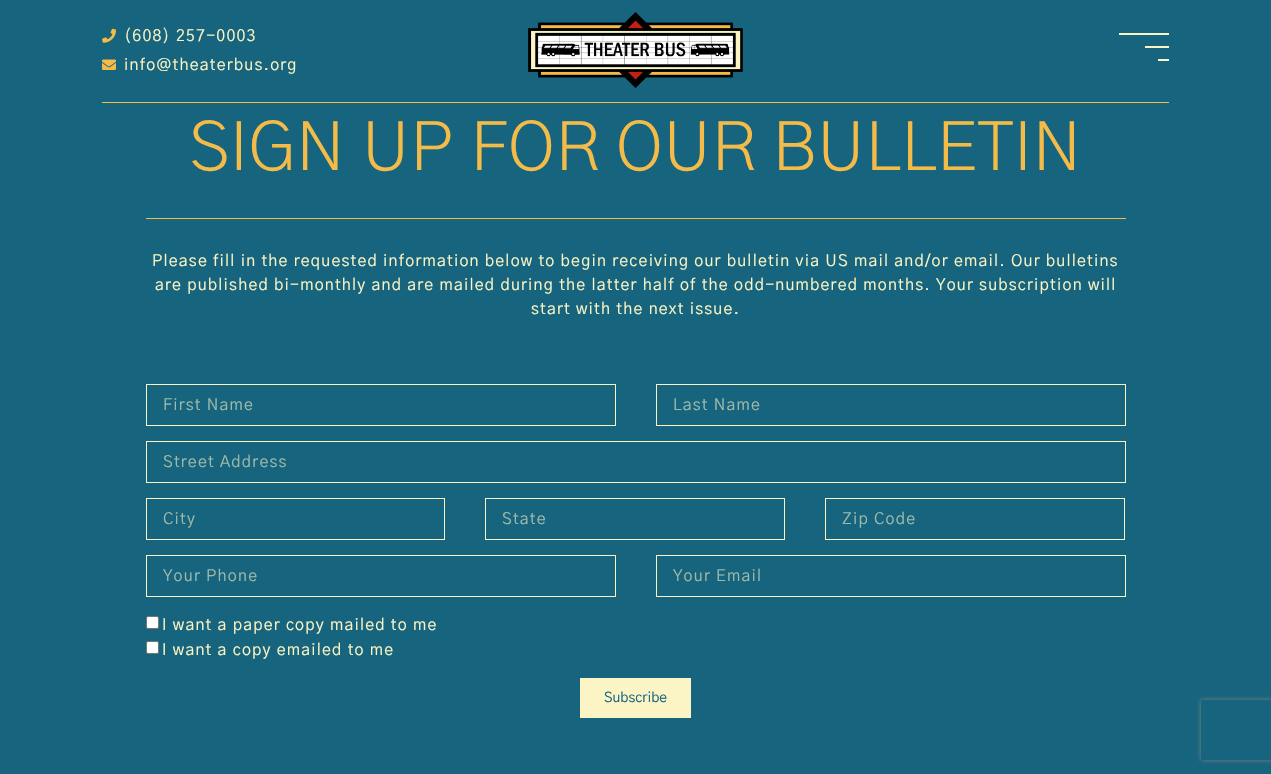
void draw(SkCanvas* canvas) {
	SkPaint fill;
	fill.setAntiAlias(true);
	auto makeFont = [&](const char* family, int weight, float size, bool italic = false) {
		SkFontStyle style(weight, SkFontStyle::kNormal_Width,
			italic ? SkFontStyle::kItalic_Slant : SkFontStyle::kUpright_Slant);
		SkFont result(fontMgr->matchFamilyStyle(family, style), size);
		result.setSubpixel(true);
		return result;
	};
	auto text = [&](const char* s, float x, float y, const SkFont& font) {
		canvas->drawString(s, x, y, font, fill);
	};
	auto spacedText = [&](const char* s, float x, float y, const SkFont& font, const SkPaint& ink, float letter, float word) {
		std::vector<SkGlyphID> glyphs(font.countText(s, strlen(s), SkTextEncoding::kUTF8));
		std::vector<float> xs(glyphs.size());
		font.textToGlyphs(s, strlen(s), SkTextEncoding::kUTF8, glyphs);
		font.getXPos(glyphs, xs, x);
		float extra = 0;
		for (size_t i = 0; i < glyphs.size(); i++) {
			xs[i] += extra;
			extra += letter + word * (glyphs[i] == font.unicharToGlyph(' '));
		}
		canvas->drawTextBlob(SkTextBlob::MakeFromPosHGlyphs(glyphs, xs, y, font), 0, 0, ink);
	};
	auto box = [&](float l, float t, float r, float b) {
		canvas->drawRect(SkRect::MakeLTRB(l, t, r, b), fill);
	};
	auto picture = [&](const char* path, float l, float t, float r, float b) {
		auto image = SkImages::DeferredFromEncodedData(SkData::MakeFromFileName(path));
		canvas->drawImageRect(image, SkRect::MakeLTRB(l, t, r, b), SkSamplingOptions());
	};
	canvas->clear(0xFF16647E);
	picture("image0.png", 102, 28, 116, 43);
	picture("image1.png", 102, 59, 116, 70);
	picture("image2.png", 528, 12, 743, 89);
	fill.setColor(0xFFFBF4C4);
	box(1119, 33, 1169, 35);
	box(1145, 46, 1169, 48);
	box(1158, 59, 1169, 61);
	fill.setColor(0xFFF4BB49);
	box(102, 102, 1169, 103);
	box(146, 218, 1126, 219);
	fill.setStyle(SkPaint::kStroke_Style);
	fill.setStrokeWidth(1);
	fill.setColor(0xFFFBF4C4);
	canvas->drawRect(SkRect::MakeLTRB(146.5f, 384.5f, 615.5f, 425.5f), fill);
	canvas->drawRect(SkRect::MakeLTRB(656.5f, 384.5f, 1125.5f, 425.5f), fill);
	canvas->drawRect(SkRect::MakeLTRB(146.5f, 441.5f, 1125.5f, 482.5f), fill);
	canvas->drawRect(SkRect::MakeLTRB(146.5f, 498.5f, 444.5f, 539.5f), fill);
	canvas->drawRect(SkRect::MakeLTRB(485.5f, 498.5f, 784.5f, 539.5f), fill);
	canvas->drawRect(SkRect::MakeLTRB(825.5f, 498.5f, 1124.5f, 539.5f), fill);
	canvas->drawRect(SkRect::MakeLTRB(146.5f, 555.5f, 615.5f, 596.5f), fill);
	canvas->drawRect(SkRect::MakeLTRB(656.5f, 555.5f, 1125.5f, 596.5f), fill);
	fill.setStyle(SkPaint::kFill_Style);
	fill.setColor(0xFFFFFFFF);
	canvas->drawRoundRect(SkRect::MakeLTRB(146.5f, 616.5f, 158.5f, 628.5f), 1.5f, 1.5f, fill);
	fill.setStyle(SkPaint::kStroke_Style);
	fill.setColor(0xFF767676);
	canvas->drawRoundRect(SkRect::MakeLTRB(146.5f, 616.5f, 158.5f, 628.5f), 1.5f, 1.5f, fill);
	fill.setStyle(SkPaint::kFill_Style);
	fill.setColor(0xFFFFFFFF);
	canvas->drawRoundRect(SkRect::MakeLTRB(146.5f, 641.5f, 158.5f, 653.5f), 1.5f, 1.5f, fill);
	fill.setStyle(SkPaint::kStroke_Style);
	fill.setColor(0xFF767676);
	canvas->drawRoundRect(SkRect::MakeLTRB(146.5f, 641.5f, 158.5f, 653.5f), 1.5f, 1.5f, fill);
	fill.setStyle(SkPaint::kFill_Style);
	fill.setColor(0xFFFBF4C4);
	box(580, 678, 691, 718);
	canvas->save();
	canvas->clipPath(SkPathBuilder(SkPathFillType::kEvenOdd).moveTo(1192, 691).lineTo(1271, 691).lineTo(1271, 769).lineTo(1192, 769).close().moveTo(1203, 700).lineTo(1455, 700).cubicTo(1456, 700, 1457, 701, 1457, 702).lineTo(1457, 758).cubicTo(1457, 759, 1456, 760, 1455, 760).lineTo(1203, 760).cubicTo(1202, 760, 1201, 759, 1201, 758).lineTo(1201, 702).cubicTo(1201, 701, 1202, 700, 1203, 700).close().detach(), true);
	fill.setColor(0xFF808080);
	fill.setMaskFilter(SkMaskFilter::MakeBlur(kNormal_SkBlurStyle, 2.5f));
	canvas->drawRoundRect(SkRect::MakeLTRB(1201, 700, 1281, 760), 2, 2, fill);
	fill.setMaskFilter(nullptr);
	canvas->restore();
	auto font1 = makeFont("Gothic A1", 400, 16);
	fill.setColor(0xFFFBF4C4);
	spacedText("(608) 257-0003", 124, 41, font1, fill, 1.2f, 0);
	spacedText("info@theaterbus.org", 124, 70, font1, fill, 1.2f, 0);
	auto font2 = makeFont("Gothic A1", 300, 68);
	fill.setColor(0xFFF4BB49);
	text("SIGN UP FOR OUR BULLETIN", 189, 170, font2);
	fill.setColor(0xFFFBF4C4);
	spacedText("Please fill in the requested information below to begin receiving our bulletin via US mail and/or email. Our bulletins", 152, 266, font1, fill, 1.2f, 0);
	spacedText("are published bi-monthly and are mailed during the latter half of the odd-numbered months. Your subscription will", 155, 290, font1, fill, 1.2f, 0);
	spacedText("start with the next issue.", 531, 314, font1, fill, 1.2f, 0);
	fill.setColor(0xFF9FBAA8);
	spacedText("First Name", 163, 410, font1, fill, 1.2f, 0);
	spacedText("Last Name", 673, 410, font1, fill, 1.2f, 0);
	spacedText("Street Address", 163, 467, font1, fill, 1.2f, 0);
	spacedText("City", 163, 524, font1, fill, 1.2f, 0);
	spacedText("State", 502, 524, font1, fill, 1.2f, 0);
	spacedText("Zip Code", 842, 524, font1, fill, 1.2f, 0);
	spacedText("Your Phone", 163, 581, font1, fill, 1.2f, 0);
	spacedText("Your Email", 673, 581, font1, fill, 1.2f, 0);
	fill.setColor(0xFFFBF4C4);
	spacedText("I want a paper copy mailed to me", 162, 630, font1, fill, 1.2f, 0);
	spacedText("I want a copy emailed to me", 162, 655, font1, fill, 1.2f, 0);
	auto font3 = makeFont("Gothic A1", 400, 14);
	fill.setColor(0xFF16647E);
	text("Subscribe", 604, 702, font3);
}
